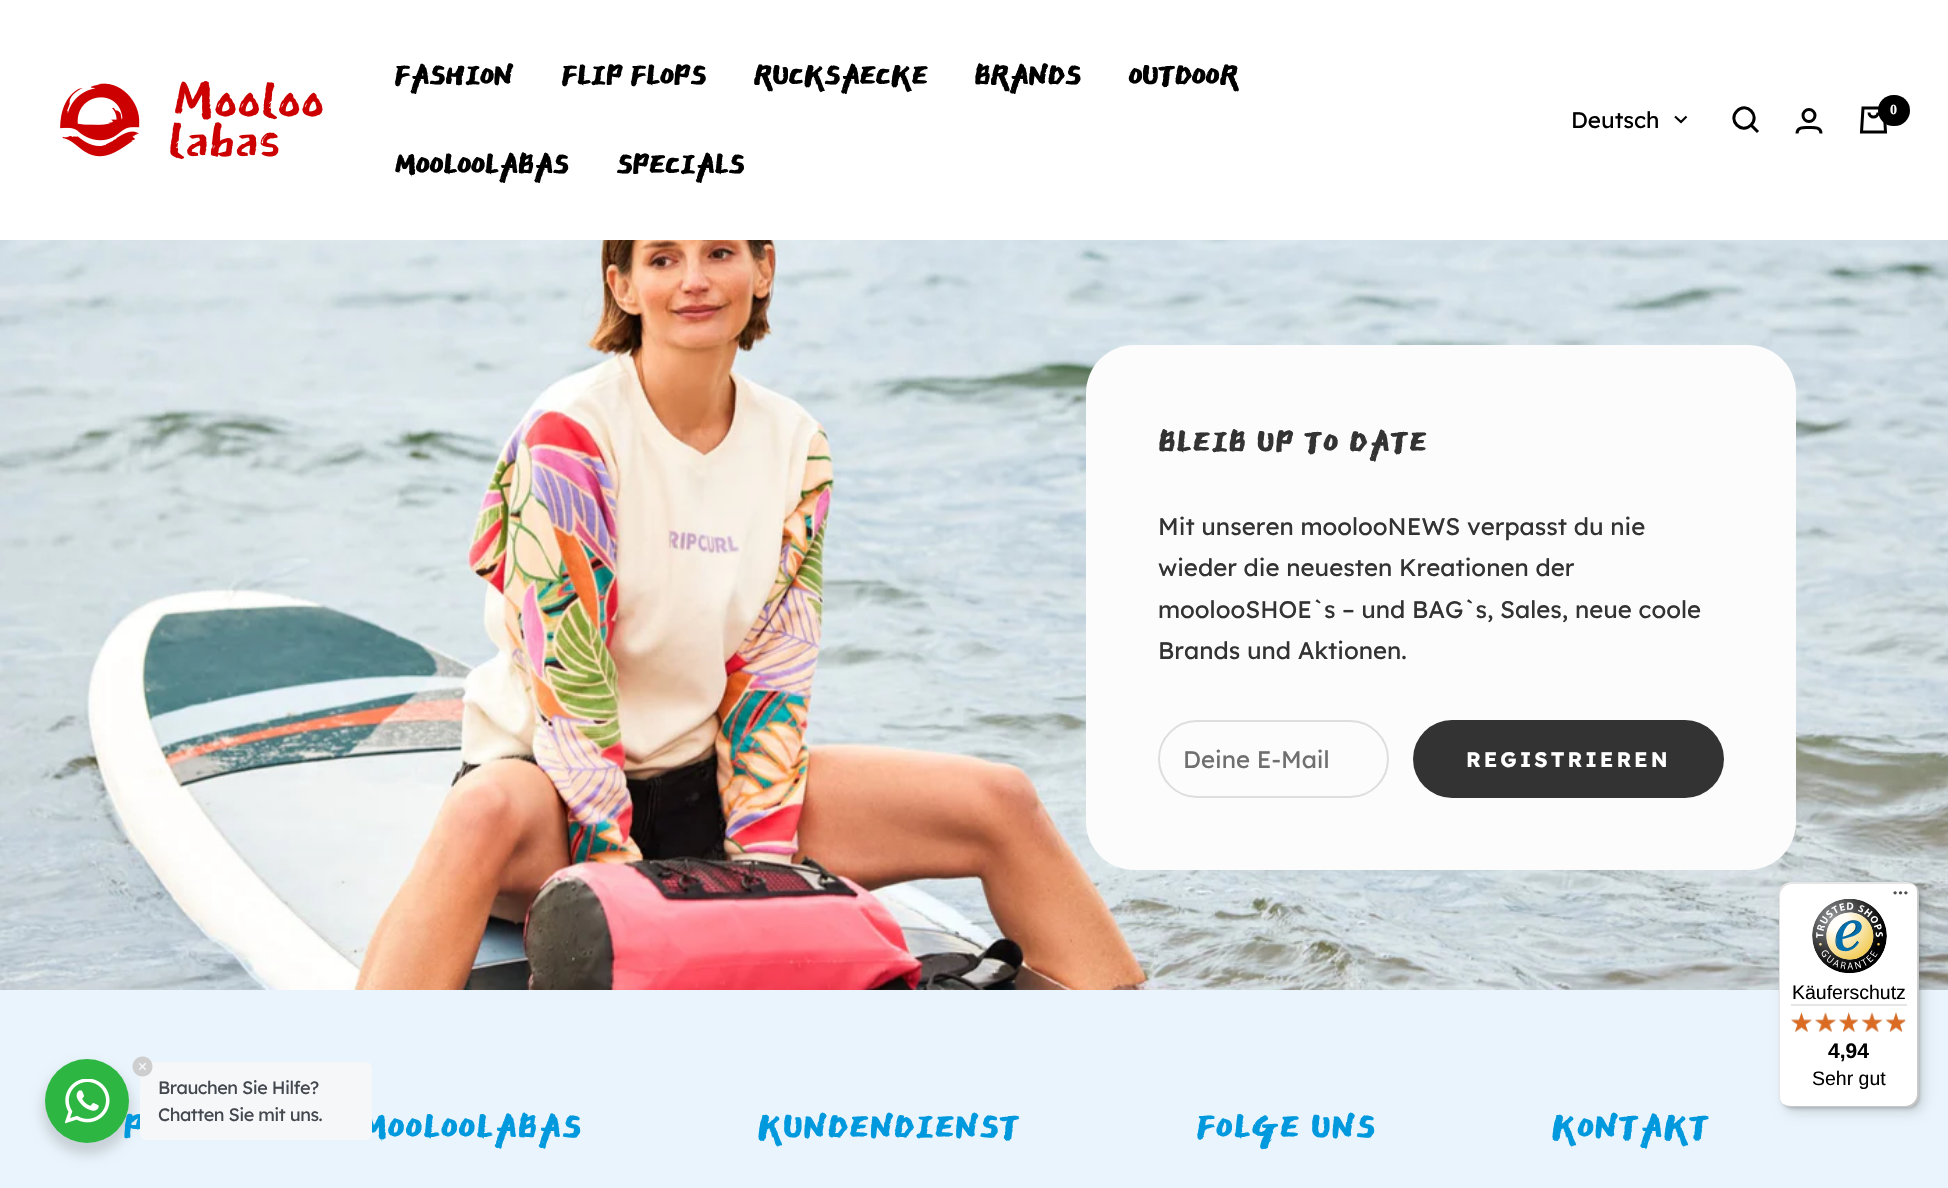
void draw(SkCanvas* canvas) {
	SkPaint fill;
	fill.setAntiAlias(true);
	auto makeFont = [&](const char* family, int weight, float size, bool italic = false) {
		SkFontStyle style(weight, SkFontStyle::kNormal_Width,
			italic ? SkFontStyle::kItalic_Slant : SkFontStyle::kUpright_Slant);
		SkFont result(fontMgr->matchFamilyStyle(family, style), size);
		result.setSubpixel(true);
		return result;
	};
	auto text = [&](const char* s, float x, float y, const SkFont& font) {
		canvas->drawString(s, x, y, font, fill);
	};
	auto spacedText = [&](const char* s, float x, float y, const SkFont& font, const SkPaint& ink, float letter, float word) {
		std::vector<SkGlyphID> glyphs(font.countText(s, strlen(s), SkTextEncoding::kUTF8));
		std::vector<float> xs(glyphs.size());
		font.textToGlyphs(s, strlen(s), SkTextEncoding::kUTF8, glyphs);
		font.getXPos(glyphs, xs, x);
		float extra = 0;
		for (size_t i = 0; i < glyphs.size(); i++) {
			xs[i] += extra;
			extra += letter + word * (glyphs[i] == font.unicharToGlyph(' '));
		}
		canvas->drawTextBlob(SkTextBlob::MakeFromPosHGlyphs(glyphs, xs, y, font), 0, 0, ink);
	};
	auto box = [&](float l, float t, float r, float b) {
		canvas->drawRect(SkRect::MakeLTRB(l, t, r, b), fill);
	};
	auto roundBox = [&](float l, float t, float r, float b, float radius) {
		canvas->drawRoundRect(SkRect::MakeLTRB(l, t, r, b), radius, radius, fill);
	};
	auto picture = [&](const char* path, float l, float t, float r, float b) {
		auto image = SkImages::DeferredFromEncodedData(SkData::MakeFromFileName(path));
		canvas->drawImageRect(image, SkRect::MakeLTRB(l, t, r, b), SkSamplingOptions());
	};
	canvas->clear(0xFFEAF4FC);
	fill.setColor(0xFFFFFFFF);
	box(0, 0, 1948, 240);
	picture("image0.png", 60, 81, 323, 159);
	fill.setStyle(SkPaint::kStroke_Style);
	fill.setStrokeWidth(3);
	fill.setColor(0xFF000000);
	canvas->drawPath(SkPathBuilder().moveTo(1751, 125).cubicTo(1760.5f, 115.5f, 1746.5f, 101.5f, 1737, 111).cubicTo(1727.5f, 120.5f, 1741.5f, 134.5f, 1751, 125).close().moveTo(1751, 125).lineTo(1758, 132).detach(), fill);
	canvas->drawCircle(1809, 115.5f, 6, fill);
	canvas->drawPath(SkPathBuilder().moveTo(1797, 133.5f).cubicTo(1797, 126.5f, 1804.5f, 127.5f, 1809, 127.5f).cubicTo(1813.5f, 127.5f, 1821, 126.5f, 1821, 133.5f).detach(), fill);
	canvas->drawPath(SkPathBuilder().moveTo(1863, 108).lineTo(1884, 108).lineTo(1885.5f, 132).lineTo(1861.5f, 132).close().moveTo(1869, 112.5f).cubicTo(1869, 118.5f, 1878, 118.5f, 1878, 112.5f).detach(), fill);
	fill.setStyle(SkPaint::kFill_Style);
	roundBox(1878, 95, 1910, 126, 15.5f);
	fill.setStyle(SkPaint::kStroke_Style);
	fill.setStrokeWidth(2.2f);
	canvas->drawPath(SkPathBuilder().moveTo(1675, 116.5f).lineTo(1681, 122).lineTo(1686.5f, 116.5f).detach(), fill);
	picture("image1.png", 0, 240, 1948, 990);
	fill.setStyle(SkPaint::kFill_Style);
	fill.setColor(0xFFFCFCFC);
	roundBox(1086, 345, 1796, 870, 48);
	fill.setStyle(SkPaint::kStroke_Style);
	fill.setStrokeWidth(2);
	fill.setColor(0xFFDEDEDE);
	canvas->drawRoundRect(SkRect::MakeLTRB(1159, 721, 1388, 797), 38, 38, fill);
	fill.setStyle(SkPaint::kFill_Style);
	fill.setColor(0xFF333333);
	roundBox(1413, 720, 1724, 798, 39);
	fill.setColor(0x26000000);
	fill.setMaskFilter(SkMaskFilter::MakeBlur(kNormal_SkBlurStyle, 6));
	canvas->drawRoundRect(SkRect::MakeLTRB(1784, 887, 1923, 1112), 12, 12, fill);
	fill.setMaskFilter(nullptr);
	fill.setMaskFilter(SkMaskFilter::MakeBlur(kNormal_SkBlurStyle, 1.5f));
	canvas->drawRoundRect(SkRect::MakeLTRB(1781, 884, 1920, 1109), 12, 12, fill);
	fill.setMaskFilter(nullptr);
	fill.setColor(0xFFFFFFFF);
	roundBox(1779, 882, 1919, 1107, 12);
	fill.setColor(0x1A000000);
	canvas->drawPath(SkPathBuilder().moveTo(1792, 884).lineTo(1908, 884).cubicTo(1912, 884, 1916, 886, 1918, 889).cubicTo(1916, 885, 1912, 882, 1907, 882).lineTo(1791, 882).cubicTo(1784, 882, 1779, 887, 1779, 894).lineTo(1779, 1095).cubicTo(1779, 1099, 1781, 1102, 1783, 1104).cubicTo(1781, 1102, 1780, 1099, 1780, 1096).lineTo(1780, 896).cubicTo(1780, 889, 1786, 884, 1792, 884).close().detach(), fill);
	fill.setColor(0x33000000);
	canvas->drawPath(SkPathBuilder().moveTo(1782, 1103).cubicTo(1784, 1105, 1787, 1107, 1791, 1107).lineTo(1907, 1107).cubicTo(1914, 1107, 1919, 1102, 1919, 1095).lineTo(1919, 894).cubicTo(1919, 890, 1917, 887, 1914, 884).cubicTo(1916, 887, 1917, 889, 1917, 892).lineTo(1917, 1094).cubicTo(1917, 1100, 1912, 1106, 1905, 1106).lineTo(1790, 1106).cubicTo(1787, 1106, 1784, 1105, 1782, 1103).close().detach(), fill);
	fill.setColor(0x33323232);
	canvas->drawPath(SkPathBuilder().moveTo(1783, 1104).cubicTo(1785, 1106, 1788, 1107, 1791, 1107).lineTo(1907, 1107).cubicTo(1914, 1107, 1919, 1102, 1919, 1095).lineTo(1919, 894).cubicTo(1919, 890, 1917, 887, 1915, 885).cubicTo(1917, 887, 1918, 890, 1918, 893).lineTo(1918, 1094).cubicTo(1918, 1101, 1912, 1106, 1906, 1106).lineTo(1790, 1106).cubicTo(1787, 1106, 1785, 1105, 1783, 1104).close().detach(), fill);
	fill.setColor(0x4DFFFFFF);
	canvas->drawPath(SkPathBuilder().moveTo(1782, 1103).cubicTo(1784, 1105, 1787, 1107, 1791, 1107).lineTo(1907, 1107).cubicTo(1914, 1107, 1919, 1102, 1919, 1095).lineTo(1919, 894).cubicTo(1919, 889, 1917, 886, 1913, 884).cubicTo(1916, 886, 1918, 889, 1918, 893).lineTo(1918, 1094).cubicTo(1918, 1101, 1912, 1106, 1906, 1106).lineTo(1790, 1106).cubicTo(1787, 1106, 1784, 1105, 1782, 1103).close().detach(), fill);
	picture("image2.png", 1893, 891, 1908, 895);
	picture("image3.png", 1812, 899, 1887, 974);
	fill.setColor(0xFFE5E5E5);
	box(1791, 1004, 1907, 1006);
	picture("image4.png", 1791, 1012, 1812, 1032);
	picture("image5.png", 1815, 1013, 1836, 1032);
	picture("image6.png", 1839, 1012, 1858, 1032);
	picture("image7.png", 1862, 1013, 1882, 1032);
	picture("image8.png", 1886, 1012, 1906, 1032);
	picture("image9.png", 1791, 1012, 1812, 1032);
	picture("image10.png", 1815, 1012, 1836, 1032);
	picture("image11.png", 1839, 1012, 1858, 1032);
	picture("image12.png", 1861, 1012, 1883, 1032);
	picture("image13.png", 1886, 1012, 1905, 1032);
	fill.setColor(0x24000000);
	fill.setMaskFilter(SkMaskFilter::MakeBlur(kNormal_SkBlurStyle, 6));
	canvas->drawRoundRect(SkRect::MakeLTRB(42, 1065, 132, 1155), 45, 45, fill);
	fill.setMaskFilter(nullptr);
	auto font1 = makeFont("East Sea Dokdo", 700, 41);
	fill.setColor(0xFF000000);
	text("FASHION", 394, 84, font1);
	text("FLIP FLOPS", 561, 84, font1);
	text("RUCKSAECKE", 753, 84, font1);
	text("BRANDS", 974, 84, font1);
	text("OUTDOOR", 1128, 84, font1);
	text("MOOLOOLABAS", 394, 173, font1);
	text("SPECIALS", 616, 173, font1);
	auto font2 = makeFont("Liberation Serif", 700, 14);
	fill.setColor(0xFFFFFFFF);
	text("0", 1890, 114, font2);
	auto font3 = makeFont("Lexend", 400, 22.5f);
	fill.setColor(0xFF000000);
	text("Deutsch", 1571, 128, font3);
	auto font4 = makeFont("East Sea Dokdo", 700, 43.25f);
	fill.setColor(0xFF333333);
	spacedText("BLEIB UP TO DATE", 1158, 451, font4, fill, 1.5f, 0);
	auto font5 = makeFont("Lexend", 400, 24);
	text("Mit unseren moolooNEWS verpasst du nie", 1158, 535, font5);
	text("wieder die neuesten Kreationen der", 1158, 576, font5);
	text("moolooSHOE`s – und BAG`s, Sales, neue coole", 1158, 618, font5);
	text("Brands und Aktionen.", 1158, 659, font5);
	fill.setColor(0xFF6F6F6F);
	text("Deine E-Mail", 1183, 768, font5);
	auto font6 = makeFont("Lexend", 700, 21);
	fill.setColor(0xFFFFFFFF);
	spacedText("REGISTRIEREN", 1466, 767, font6, fill, 3, 0);
	auto font7 = makeFont("Liberation Sans", 400, 19.5f);
	fill.setColor(0xFF000000);
	text("Käuferschutz", 1792, 999, font7);
	auto font8 = makeFont("Liberation Sans", 700, 21);
	text("4,94", 1828, 1058, font8);
	text("Sehr gut", 1812, 1085, font7);
	auto font9 = makeFont("East Sea Dokdo", 700, 48);
	fill.setColor(0xFF0099DD);
	spacedText("P", 123, 1137, font9, fill, 1.5f, 0);
	fill.setColor(0xFF2DB742);
	canvas->drawCircle(87, 1101, 42, fill);
	picture("image14.png", 65, 1079, 110, 1124);
	fill.setColor(0xFF0099DD);
	spacedText("MOOLOOLABAS", 361, 1137, font9, fill, 1.5f, 0);
	fill.setColor(0xFFF5F7F9);
	roundBox(140, 1062, 372, 1140, 6);
	picture("image15.png", 132, 1056, 153, 1077);
	auto font10 = makeFont("Lexend", 400, 18);
	fill.setColor(0xFF43474E);
	spacedText("Chatten Sie mit uns.", 158, 1121, font10, fill, -0.5f, 0);
	spacedText("Brauchen Sie Hilfe?", 158, 1094, font10, fill, -0.5f, 0);
	fill.setColor(0xFF0099DD);
	spacedText("KUNDENDIENST", 757, 1137, font9, fill, 1.5f, 0);
	spacedText("FOLGE UNS", 1196, 1137, font9, fill, 1.5f, 0);
	spacedText("KONTAKT", 1551, 1137, font9, fill, 1.5f, 0);
}
